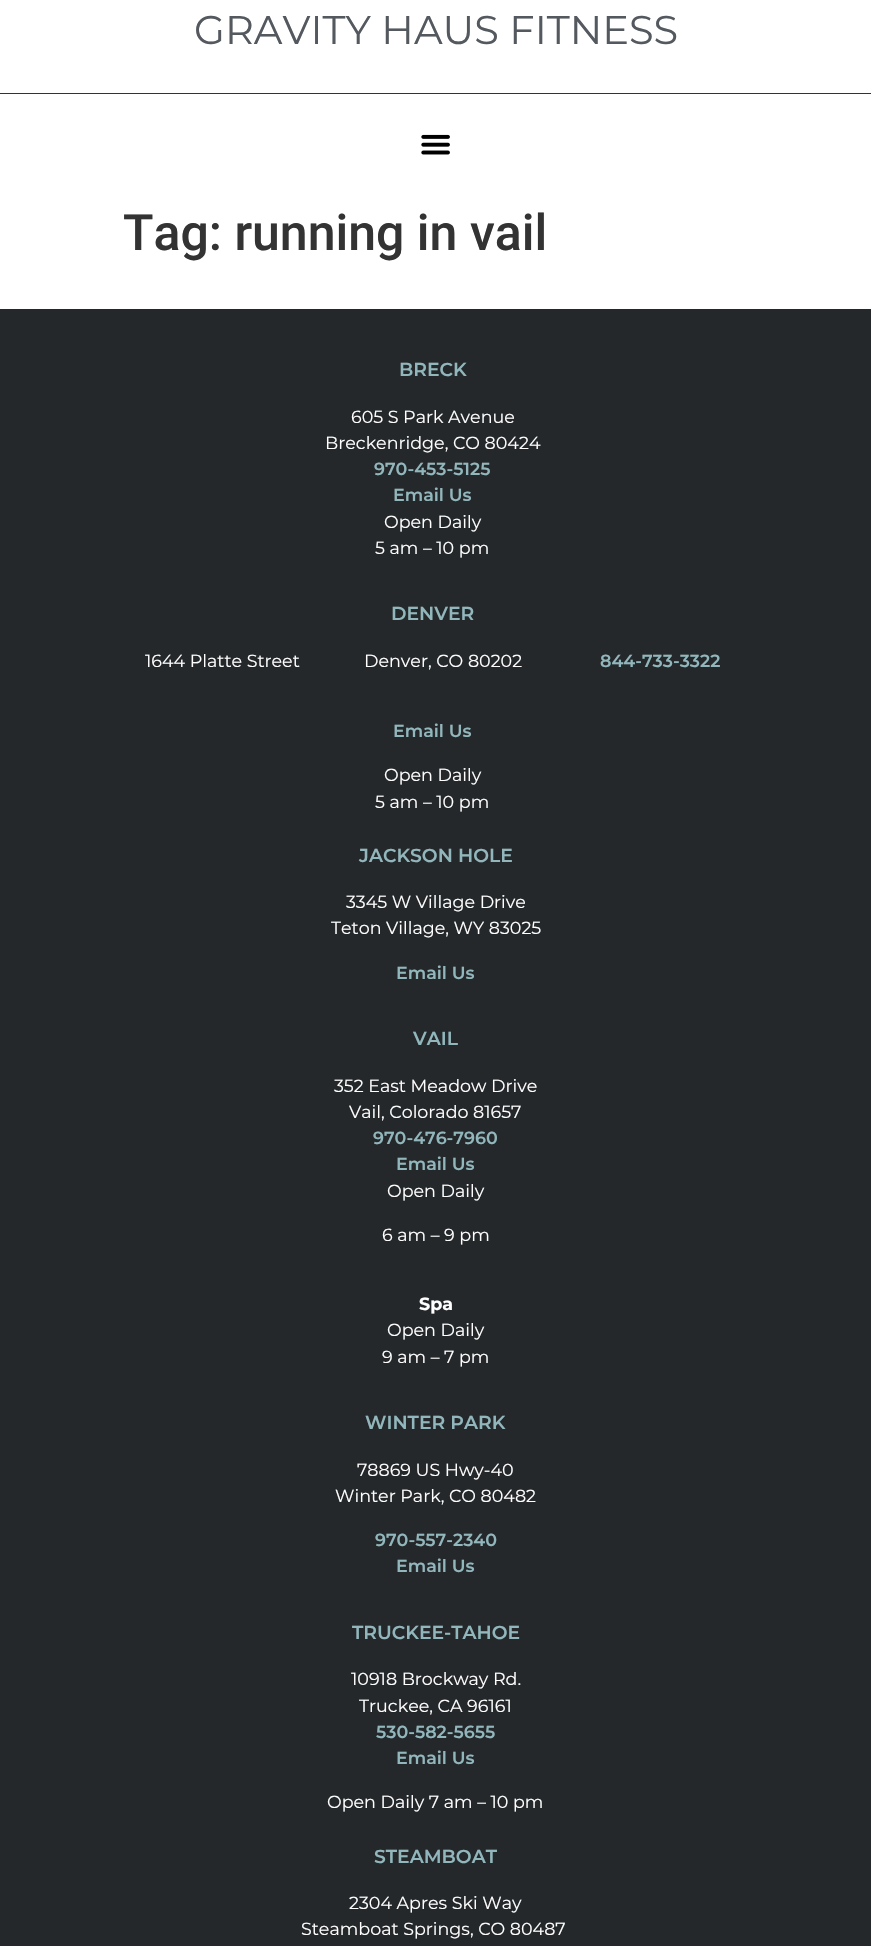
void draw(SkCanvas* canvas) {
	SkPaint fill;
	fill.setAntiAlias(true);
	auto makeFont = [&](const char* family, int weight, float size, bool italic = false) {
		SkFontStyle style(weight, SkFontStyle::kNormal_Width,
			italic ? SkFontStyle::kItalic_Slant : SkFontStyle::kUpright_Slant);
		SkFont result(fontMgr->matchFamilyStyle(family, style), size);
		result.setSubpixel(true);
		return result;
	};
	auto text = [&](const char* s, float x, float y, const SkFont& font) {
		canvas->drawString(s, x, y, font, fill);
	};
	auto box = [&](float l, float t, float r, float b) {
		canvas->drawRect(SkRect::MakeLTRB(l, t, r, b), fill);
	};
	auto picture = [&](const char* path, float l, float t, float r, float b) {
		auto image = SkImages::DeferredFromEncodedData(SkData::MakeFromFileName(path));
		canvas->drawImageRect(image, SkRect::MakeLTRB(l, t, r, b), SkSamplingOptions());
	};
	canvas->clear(0xFFFFFFFF);
	fill.setColor(0xFF333333);
	box(0, 93, 871, 94);
	picture("image0.png", 421, 134, 450, 155);
	fill.setColor(0xFF25282B);
	box(0, 309, 871, 1946);
	auto font1 = makeFont("Montserrat", 400, 40);
	fill.setColor(0xFF54595F);
	text("GRAVITY HAUS FITNESS", 194, 44, font1);
	auto font2 = makeFont("Roboto", 500, 50);
	fill.setColor(0xFF333333);
	text("Tag: running in vail", 123, 250, font2);
	auto font3 = makeFont("Montserrat", 600, 18.75f);
	fill.setColor(0xFF91B6BB);
	text("BRECK", 399, 376, font3);
	auto font4 = makeFont("Montserrat", 400, 17.5f);
	fill.setColor(0xFFFFFFFF);
	text("605 S Park Avenue", 351, 423, font4);
	text("Breckenridge, CO 80424", 325, 449, font4);
	auto font5 = makeFont("Montserrat", 600, 17.5f);
	fill.setColor(0xFF91B6BB);
	text("970-453-5125", 374, 475, font5);
	text("Email Us", 393, 501, font5);
	fill.setColor(0xFFFFFFFF);
	text("Open Daily", 384, 528, font4);
	text("5 am – 10 pm", 375, 554, font4);
	fill.setColor(0xFF91B6BB);
	text("DENVER", 391, 620, font3);
	fill.setColor(0xFFFFFFFF);
	text("1644 Platte Street              Denver, CO 80202", 145, 667, font4);
	fill.setColor(0xFF91B6BB);
	text("844-733-3322", 600, 667, font5);
	text("Email Us", 393, 737, font5);
	fill.setColor(0xFFFFFFFF);
	text("Open Daily", 384, 781, font4);
	text("5 am – 10 pm", 375, 808, font4);
	fill.setColor(0xFF91B6BB);
	text("JACKSON HOLE", 359, 862, font3);
	fill.setColor(0xFFFFFFFF);
	text("3345 W Village Drive", 346, 908, font4);
	text("Teton Village, WY 83025", 331, 934, font4);
	fill.setColor(0xFF91B6BB);
	text("Email Us", 396, 979, font5);
	text("VAIL", 413, 1045, font3);
	fill.setColor(0xFFFFFFFF);
	text("352 East Meadow Drive", 334, 1092, font4);
	text("Vail, Colorado 81657", 349, 1118, font4);
	fill.setColor(0xFF91B6BB);
	text("970-476-7960", 373, 1144, font5);
	text("Email Us", 396, 1170, font5);
	fill.setColor(0xFFFFFFFF);
	text("Open Daily", 387, 1197, font4);
	text("6 am – 9 pm", 382, 1241, font4);
	auto font6 = makeFont("Montserrat", 700, 17.5f);
	text("Spa", 419, 1310, font6);
	text("Open Daily", 387, 1336, font4);
	text("9 am – 7 pm", 382, 1363, font4);
	fill.setColor(0xFF91B6BB);
	text("WINTER PARK", 365, 1429, font3);
	fill.setColor(0xFFFFFFFF);
	text("78869 US Hwy-40", 357, 1476, font4);
	text("Winter Park, CO 80482", 335, 1502, font4);
	fill.setColor(0xFF91B6BB);
	text("970-557-2340", 375, 1546, font5);
	text("Email Us", 396, 1572, font5);
	text("TRUCKEE-TAHOE", 352, 1639, font3);
	fill.setColor(0xFFFFFFFF);
	text("10918 Brockway Rd.", 351, 1685, font4);
	text("Truckee, CA 96161", 359, 1712, font4);
	fill.setColor(0xFF91B6BB);
	text("530-582-5655", 376, 1738, font5);
	text("Email Us", 396, 1764, font5);
	fill.setColor(0xFFFFFFFF);
	text("Open Daily 7 am – 10 pm", 327, 1808, font4);
	fill.setColor(0xFF91B6BB);
	text("STEAMBOAT", 374, 1863, font3);
	fill.setColor(0xFFFFFFFF);
	text("2304 Apres Ski Way", 349, 1909, font4);
	text("Steamboat Springs, CO 80487", 301, 1935, font4);
}
